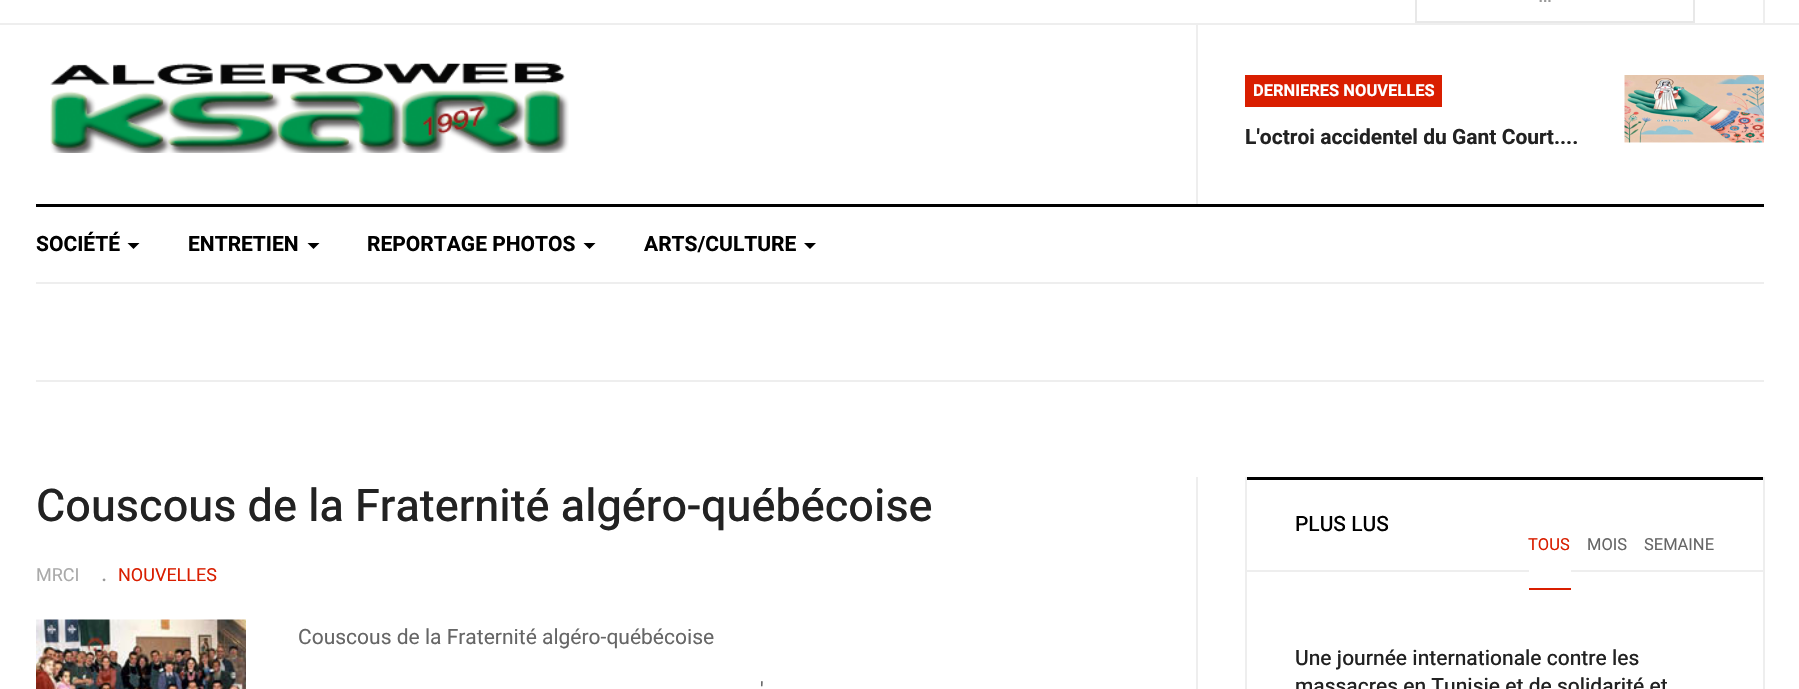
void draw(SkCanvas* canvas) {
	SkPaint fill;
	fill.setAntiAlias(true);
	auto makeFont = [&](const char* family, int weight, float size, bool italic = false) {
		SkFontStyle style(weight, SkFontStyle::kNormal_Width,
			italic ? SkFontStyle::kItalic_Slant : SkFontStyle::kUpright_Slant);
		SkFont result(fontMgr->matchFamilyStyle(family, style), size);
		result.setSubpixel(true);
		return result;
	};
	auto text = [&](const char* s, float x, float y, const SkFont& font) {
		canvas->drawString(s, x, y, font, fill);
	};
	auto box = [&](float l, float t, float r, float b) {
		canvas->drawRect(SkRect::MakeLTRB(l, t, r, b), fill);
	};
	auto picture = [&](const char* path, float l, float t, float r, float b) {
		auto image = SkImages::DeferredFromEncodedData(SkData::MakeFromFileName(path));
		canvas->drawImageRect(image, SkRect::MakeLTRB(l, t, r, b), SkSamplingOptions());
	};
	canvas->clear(0xFFFFFFFF);
	fill.setColor(0xFFEEEEEE);
	box(0, 23, 1799, 25);
	box(1763, 0, 1765, 23);
	fill.setStyle(SkPaint::kStroke_Style);
	fill.setStrokeWidth(2);
	fill.setColor(0xFFE8E8E8);
	canvas->drawRect(SkRect::MakeLTRB(1416, -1, 1694, 22), fill);
	picture("image0.png", 50, 62, 569, 153);
	fill.setStyle(SkPaint::kFill_Style);
	fill.setColor(0xFFEEEEEE);
	box(1196, 24, 1198, 204);
	fill.setColor(0xFFD91E00);
	box(1245, 75, 1442, 107);
	picture("image1.png", 1624, 75, 1764, 143);
	fill.setColor(0xFF000000);
	box(36, 204, 1764, 207);
	fill.setColor(0xFFEEEEEE);
	box(36, 282, 1764, 284);
	fill.setColor(0xFF000000);
	canvas->drawPath(SkPathBuilder().moveTo(127.5f, 243).lineTo(139.5f, 243).lineTo(133.5f, 249).close().detach(), fill);
	canvas->drawPath(SkPathBuilder().moveTo(307.5f, 243).lineTo(319.5f, 243).lineTo(313.5f, 249).close().detach(), fill);
	canvas->drawPath(SkPathBuilder().moveTo(583.5f, 243).lineTo(595.5f, 243).lineTo(589.5f, 249).close().detach(), fill);
	canvas->drawPath(SkPathBuilder().moveTo(804, 243).lineTo(816, 243).lineTo(810, 249).close().detach(), fill);
	fill.setColor(0xFFEEEEEE);
	box(36, 380, 1764, 382);
	picture("image2.png", 36, 619, 246, 689);
	box(1196, 477, 1198, 689);
	box(1763, 477, 1765, 689);
	box(1245, 477, 1247, 689);
	fill.setColor(0xFF000000);
	box(1247, 477, 1763, 480);
	fill.setColor(0xFFEEEEEE);
	box(1247, 570, 1763, 572);
	fill.setColor(0xFFFFFFFF);
	box(1529, 570, 1571, 572);
	fill.setColor(0xFFD91E00);
	box(1529, 588, 1571, 590);
	auto font1 = makeFont("Heebo", 400, 21);
	fill.setColor(0xFF999999);
	text("…", 1538, 2, font1);
	auto font2 = makeFont("Heebo", 700, 16.5f);
	fill.setColor(0xFFFFFFFF);
	text("DERNIERES NOUVELLES", 1253, 96, font2);
	auto font3 = makeFont("Heebo", 700, 21);
	fill.setColor(0xFF222222);
	text("L'octroi accidentel du Gant Court....", 1245, 144, font3);
	fill.setColor(0xFF000000);
	text("SOCIÉTÉ", 36, 251, font3);
	text("ENTRETIEN", 188, 251, font3);
	text("REPORTAGE PHOTOS", 367, 251, font3);
	text("ARTS/CULTURE", 644, 251, font3);
	auto font4 = makeFont("Heebo", 500, 45);
	fill.setColor(0xFF222222);
	text("Couscous de la Fraternité algéro-québécoise", 36, 521, font4);
	auto font5 = makeFont("Heebo", 400, 18);
	fill.setColor(0xFFAAAAAA);
	text("MRCI", 36, 581, font5);
	auto font6 = makeFont("Heebo", 400, 24);
	fill.setColor(0xFF999999);
	text(".", 101, 581, font6);
	fill.setColor(0xFFD91E00);
	text("NOUVELLES", 118, 581, font5);
	fill.setColor(0xFF666666);
	text("Couscous de la Fraternité algéro-québécoise", 298, 644, font1);
	text("'", 760, 697, font1);
	auto font7 = makeFont("Heebo", 500, 21);
	fill.setColor(0xFF000000);
	text("PLUS LUS", 1295, 531, font7);
	auto font8 = makeFont("Heebo", 400, 16.5f);
	fill.setColor(0xFFD91E00);
	text("TOUS", 1528, 550, font8);
	fill.setColor(0xFF666666);
	text("MOIS", 1587, 550, font8);
	text("SEMAINE", 1644, 550, font8);
	fill.setColor(0xFF222222);
	text("Une journée internationale contre les", 1295, 665, font7);
	text("massacres en Tunisie et de solidarité et", 1295, 693, font7);
}
